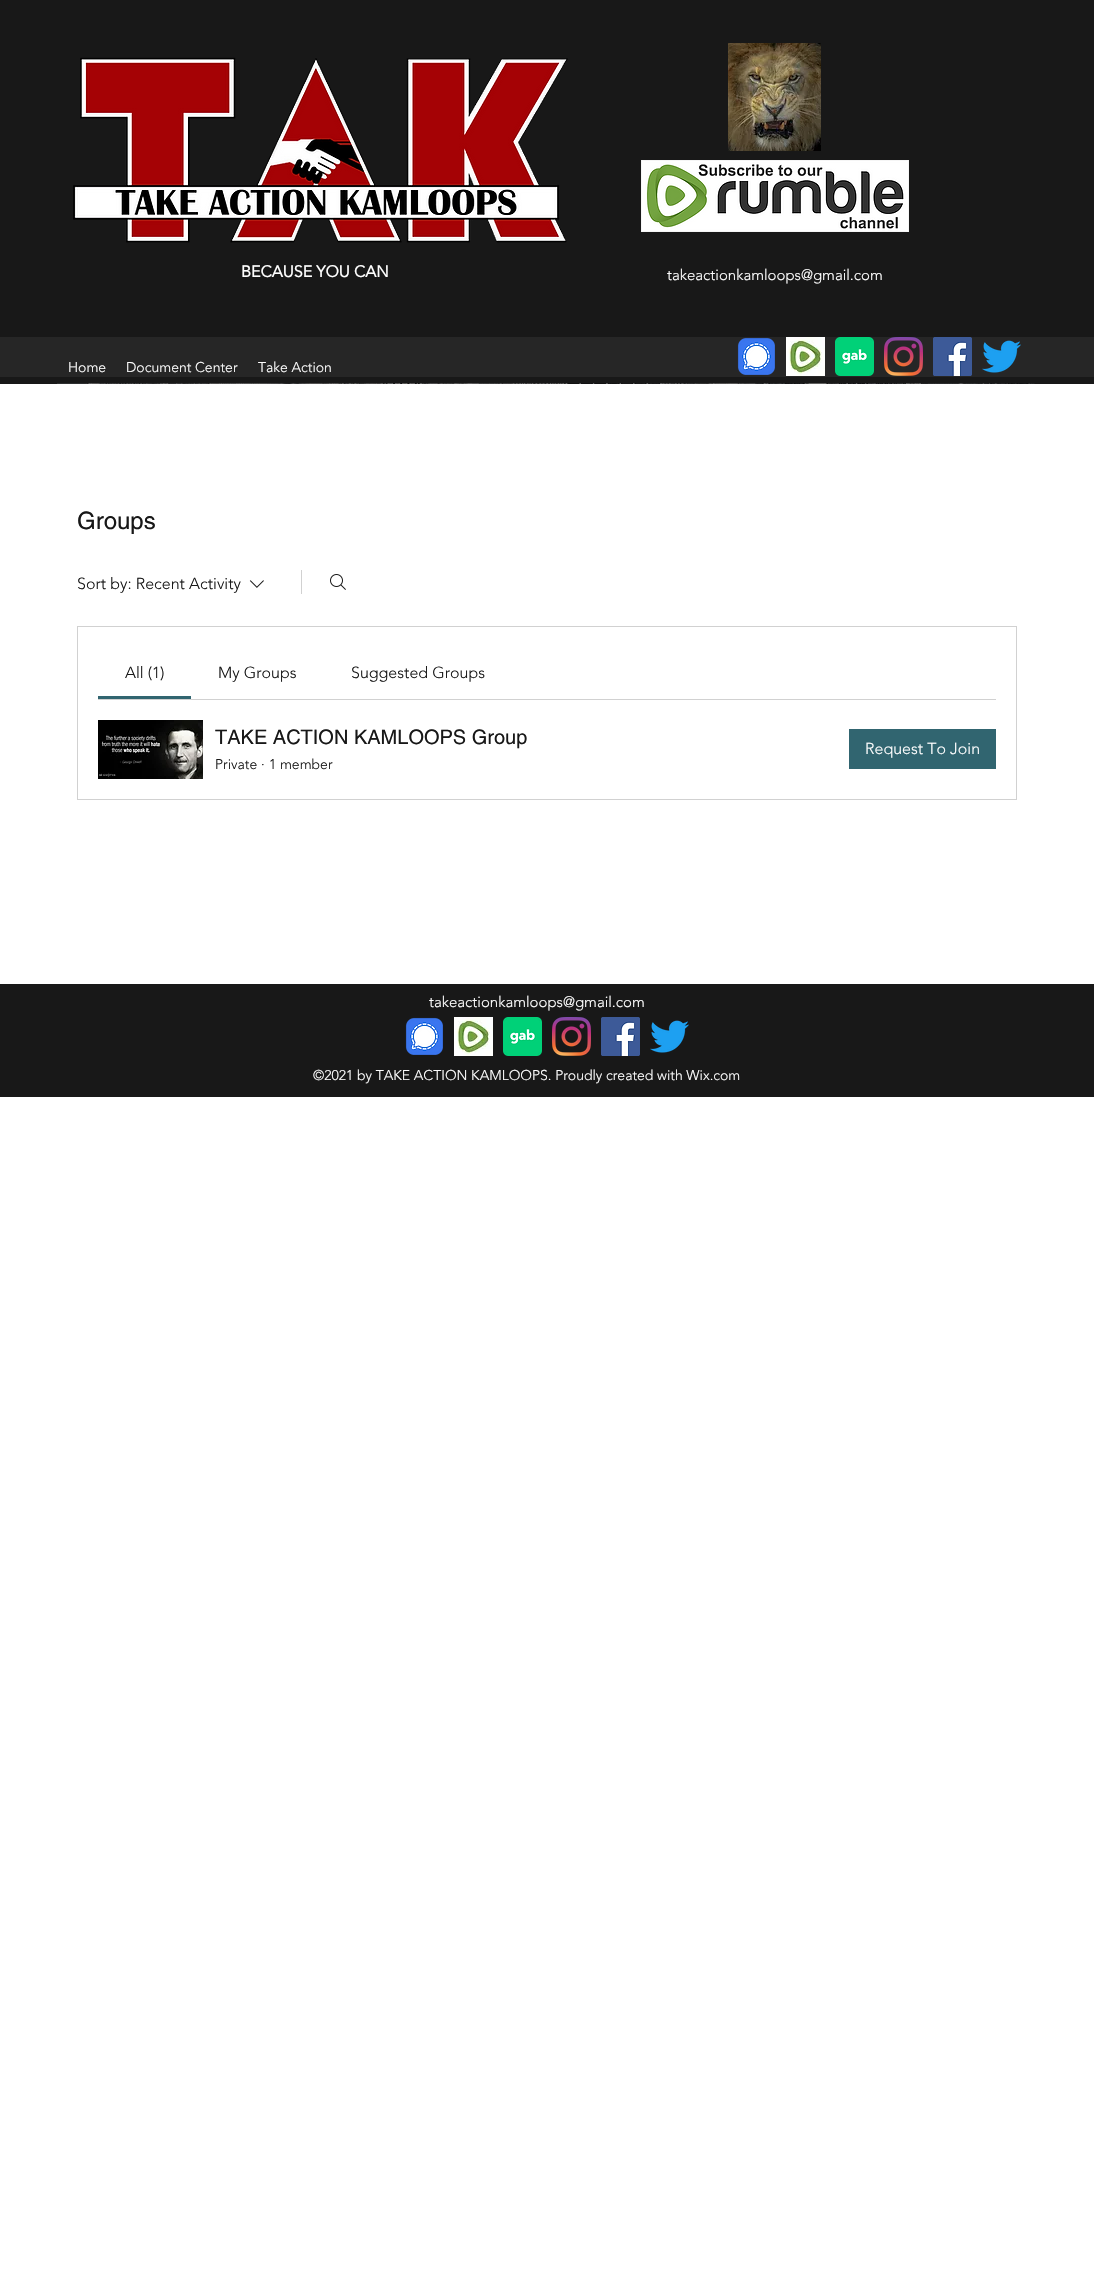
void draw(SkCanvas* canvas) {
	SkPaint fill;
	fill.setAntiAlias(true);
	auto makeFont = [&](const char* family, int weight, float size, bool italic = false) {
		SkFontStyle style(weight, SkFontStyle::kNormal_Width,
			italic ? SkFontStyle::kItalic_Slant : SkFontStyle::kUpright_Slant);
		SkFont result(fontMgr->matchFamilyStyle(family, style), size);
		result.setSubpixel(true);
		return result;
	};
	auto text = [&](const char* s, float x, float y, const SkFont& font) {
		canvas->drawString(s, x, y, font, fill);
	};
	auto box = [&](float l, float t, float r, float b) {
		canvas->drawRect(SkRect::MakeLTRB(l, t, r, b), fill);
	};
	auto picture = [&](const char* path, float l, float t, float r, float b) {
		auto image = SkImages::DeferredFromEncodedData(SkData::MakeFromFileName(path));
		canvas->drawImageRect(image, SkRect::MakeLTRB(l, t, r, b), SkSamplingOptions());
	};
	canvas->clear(0xFFFFFFFF);
	fill.setColor(0xFF181818);
	box(0, 0, 1094, 384);
	picture("image0.png", 73, 57, 568, 243);
	picture("image1.png", 728, 43, 821, 151);
	picture("image2.png", 641, 160, 909, 232);
	fill.setColor(0xFF262626);
	box(0, 337, 1094, 377);
	picture("image3.png", 737, 337, 775, 375);
	picture("image4.png", 786, 337, 825, 376);
	picture("image5.png", 835, 337, 874, 376);
	picture("image6.png", 884, 337, 923, 376);
	picture("image7.png", 933, 337, 972, 376);
	picture("image8.png", 982, 340, 1021, 373);
	picture("image9.png", 57, 383, 1035, 384);
	picture("image10.png", 249, 580, 264, 588);
	fill.setColor(0xFFD1D1D1);
	box(301, 570, 302, 594);
	picture("image11.png", 330, 574, 346, 590);
	fill.setStyle(SkPaint::kStroke_Style);
	fill.setStrokeWidth(1);
	canvas->drawRect(SkRect::MakeLTRB(77.5f, 626.5f, 1016.5f, 799.5f), fill);
	fill.setStyle(SkPaint::kFill_Style);
	box(98, 699, 996, 700);
	fill.setColor(0xFF316570);
	box(98, 696, 191, 699);
	picture("image12.png", 98, 720, 203, 779);
	box(849, 729, 996, 769);
	fill.setColor(0xFF181818);
	box(0, 984, 1094, 1097);
	picture("image13.png", 405, 1017, 443, 1055);
	picture("image4.png", 454, 1017, 493, 1056);
	picture("image14.png", 503, 1017, 542, 1056);
	picture("image15.png", 552, 1017, 591, 1056);
	picture("image16.png", 601, 1017, 640, 1056);
	picture("image17.png", 650, 1020, 689, 1053);
	auto font1 = makeFont("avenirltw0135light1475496", 700, 16);
	fill.setColor(0xFFFFFFFF);
	text("BECAUSE YOU CAN", 241, 277, font1);
	auto font2 = makeFont("avenirltw0135light1475496", 300, 15);
	text("takeactionkamloops@gmail.com", 667, 280, font2);
	auto font3 = makeFont("avenirltw0135light1475496", 300, 14);
	text("Home", 68, 372, font3);
	text("Document Center", 126, 372, font3);
	text("Take Action", 258, 372, font3);
	auto font4 = makeFont("helvetica", 400, 24);
	fill.setColor(0xFF181818);
	text("Groups", 77, 529, font4);
	auto font5 = makeFont("avenirltw0135light1475496", 300, 16);
	text("Sort by: Recent Activity", 77, 589, font5);
	text("All (1)", 125, 678, font5);
	text("My Groups", 218, 678, font5);
	text("Suggested Groups", 351, 678, font5);
	auto font6 = makeFont("helvetica", 400, 20);
	text("TAKE ACTION KAMLOOPS Group", 215, 744, font6);
	text("Private", 215, 769, font3);
	text("·", 261, 769, font3);
	text("1 member", 269, 769, font3);
	fill.setColor(0xFFFFFFFF);
	text("Request To Join", 865, 754, font5);
	text("takeactionkamloops@gmail.com", 429, 1007, font2);
	text("©2021 by TAKE ACTION KAMLOOPS. Proudly created with Wix.com", 313, 1080, font3);
}
